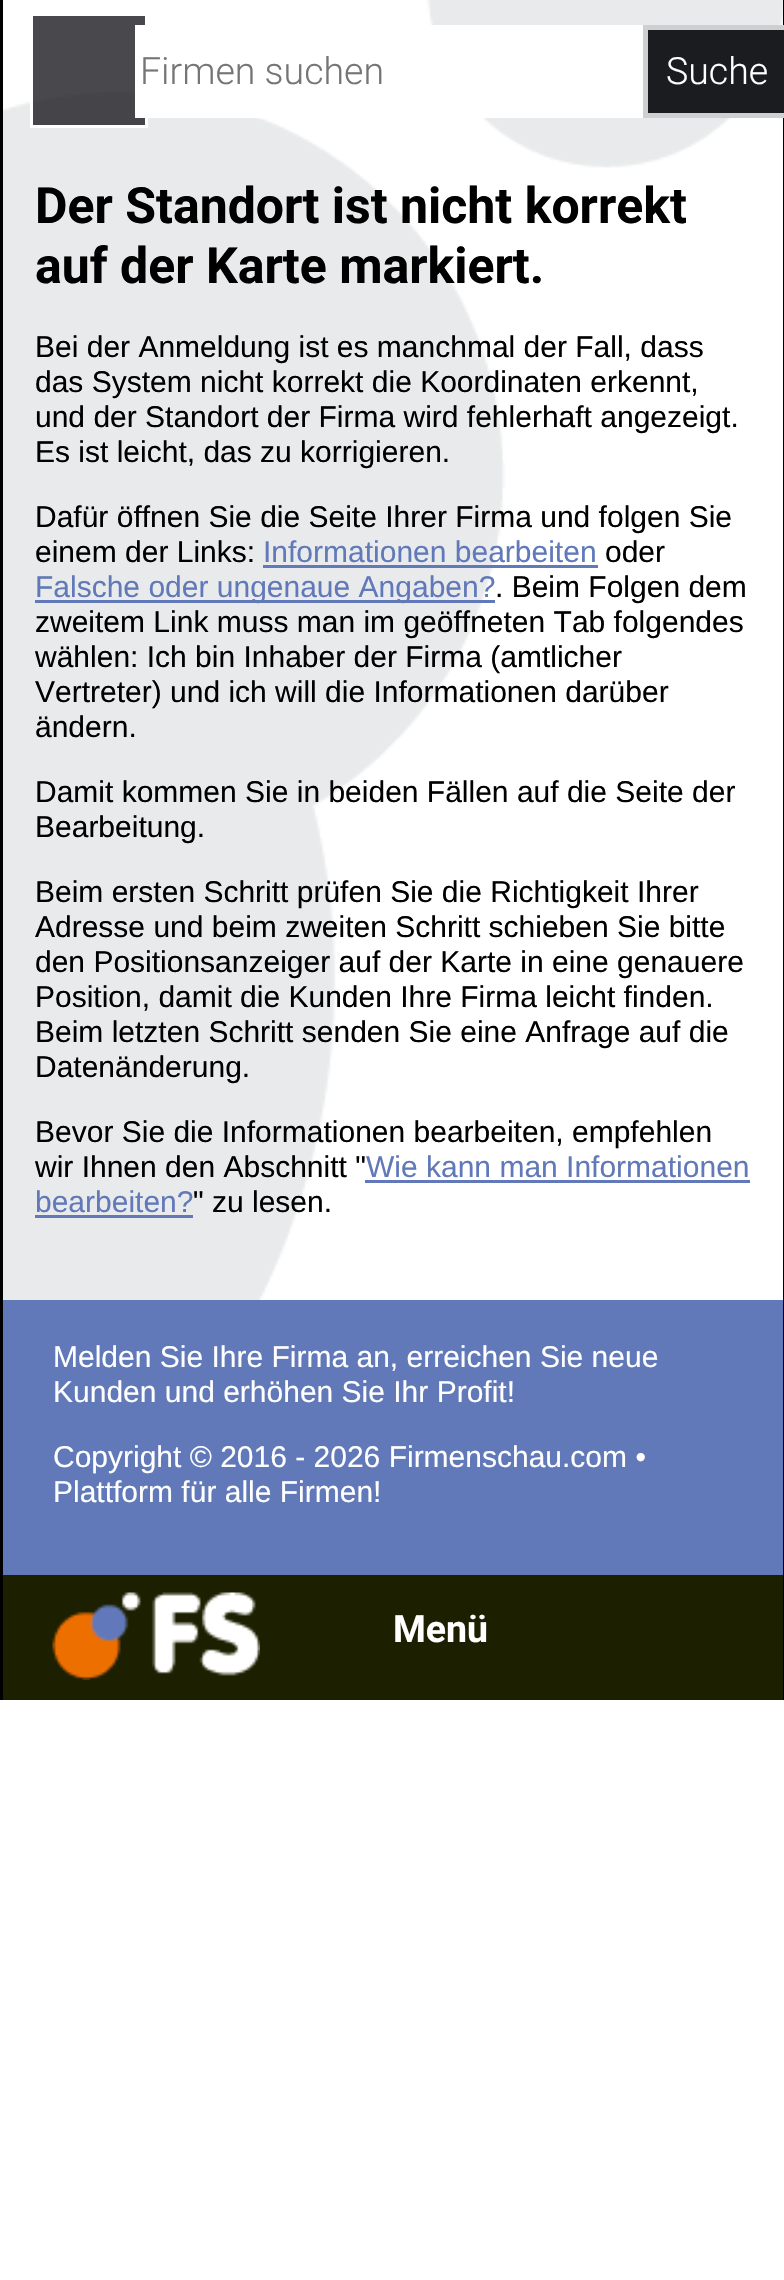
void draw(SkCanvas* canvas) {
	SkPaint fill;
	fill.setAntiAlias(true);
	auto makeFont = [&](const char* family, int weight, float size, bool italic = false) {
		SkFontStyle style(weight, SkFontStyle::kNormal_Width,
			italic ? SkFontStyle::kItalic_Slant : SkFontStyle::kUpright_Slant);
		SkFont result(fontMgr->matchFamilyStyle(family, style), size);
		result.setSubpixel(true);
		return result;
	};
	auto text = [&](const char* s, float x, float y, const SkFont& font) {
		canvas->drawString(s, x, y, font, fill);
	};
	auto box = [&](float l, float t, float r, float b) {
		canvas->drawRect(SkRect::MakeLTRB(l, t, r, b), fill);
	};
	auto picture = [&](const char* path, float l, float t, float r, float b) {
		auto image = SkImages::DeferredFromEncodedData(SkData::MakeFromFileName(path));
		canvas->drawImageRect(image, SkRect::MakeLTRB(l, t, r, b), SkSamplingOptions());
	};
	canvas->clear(0xFFFFFFFF);
	picture("image0.png", 3, 0, 783, 1300);
	fill.setColor(0xFF000000);
	box(783, 0, 784, 1700);
	box(0, 0, 3, 1700);
	fill.setColor(0xCC1B1C20);
	canvas->drawRect(SkRect::MakeLTRB(31.5f, 14.5f, 146.5f, 126.5f), fill);
	fill.setStyle(SkPaint::kStroke_Style);
	fill.setStrokeWidth(3);
	fill.setColor(0xFFFFFFFF);
	canvas->drawRect(SkRect::MakeLTRB(31.5f, 14.5f, 146.5f, 126.5f), fill);
	fill.setStyle(SkPaint::kFill_Style);
	box(135, 25, 643, 118);
	fill.setColor(0xFF1B1C20);
	canvas->drawRect(SkRect::MakeLTRB(645.5f, 27.5f, 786.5f, 115.5f), fill);
	fill.setStyle(SkPaint::kStroke_Style);
	fill.setStrokeWidth(5);
	fill.setColor(0xFFCDCFD1);
	canvas->drawRect(SkRect::MakeLTRB(645.5f, 27.5f, 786.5f, 115.5f), fill);
	fill.setStyle(SkPaint::kFill_Style);
	fill.setColor(0xFF6179B9);
	box(263, 565, 598, 568);
	box(35, 600, 495, 603);
	box(365, 1180, 750, 1183);
	box(35, 1215, 193, 1218);
	box(3, 1300, 783, 1575);
	fill.setColor(0xFF1C1F00);
	box(3, 1575, 783, 1700);
	picture("image1.png", 52, 1592, 260, 1680);
	auto font1 = makeFont("Roboto", 300, 37.5f);
	fill.setColor(0xFF757575);
	text("Firmen suchen", 140, 84, font1);
	fill.setColor(0xFFFFFFFF);
	text("Suche", 666, 84, font1);
	auto font2 = makeFont("Roboto", 700, 50);
	fill.setColor(0xFF000000);
	text("Der Standort ist nicht korrekt", 35, 223, font2);
	text("auf der Karte markiert.", 35, 283, font2);
	auto font3 = makeFont("Liberation Sans", 400, 30);
	text("Bei der Anmeldung ist es manchmal der Fall, dass", 35, 357, font3);
	text("das System nicht korrekt die Koordinaten erkennt,", 35, 392, font3);
	text("und der Standort der Firma wird fehlerhaft angezeigt.", 35, 427, font3);
	text("Es ist leicht, das zu korrigieren.", 35, 462, font3);
	text("Dafür öffnen Sie die Seite Ihrer Firma und folgen Sie", 35, 527, font3);
	text("einem der Links:", 35, 562, font3);
	fill.setColor(0xFF6179B9);
	text("Informationen bearbeiten", 263, 562, font3);
	fill.setColor(0xFF000000);
	text("oder", 605, 562, font3);
	fill.setColor(0xFF6179B9);
	text("Falsche oder ungenaue Angaben?", 35, 597, font3);
	fill.setColor(0xFF000000);
	text(". Beim Folgen dem", 495, 597, font3);
	text("zweitem Link muss man im geöffneten Tab folgendes", 35, 632, font3);
	text("wählen: Ich bin Inhaber der Firma (amtlicher", 35, 667, font3);
	text("Vertreter) und ich will die Informationen darüber", 35, 702, font3);
	text("ändern.", 35, 737, font3);
	text("Damit kommen Sie in beiden Fällen auf die Seite der", 35, 802, font3);
	text("Bearbeitung.", 35, 837, font3);
	text("Beim ersten Schritt prüfen Sie die Richtigkeit Ihrer", 35, 902, font3);
	text("Adresse und beim zweiten Schritt schieben Sie bitte", 35, 937, font3);
	text("den Positionsanzeiger auf der Karte in eine genauere", 35, 972, font3);
	text("Position, damit die Kunden Ihre Firma leicht finden.", 35, 1007, font3);
	text("Beim letzten Schritt senden Sie eine Anfrage auf die", 35, 1042, font3);
	text("Datenänderung.", 35, 1077, font3);
	text("Bevor Sie die Informationen bearbeiten, empfehlen", 35, 1142, font3);
	text("wir Ihnen den Abschnitt \"", 35, 1177, font3);
	fill.setColor(0xFF6179B9);
	text("Wie kann man Informationen", 366, 1177, font3);
	text("bearbeiten?", 35, 1212, font3);
	fill.setColor(0xFF000000);
	text("\" zu lesen.", 193, 1212, font3);
	fill.setColor(0xFFFFFFFF);
	text("Melden Sie Ihre Firma an, erreichen Sie neue", 53, 1367, font3);
	text("Kunden und erhöhen Sie Ihr Profit!", 53, 1402, font3);
	text("Copyright © 2016 - 2026 Firmenschau.com •", 53, 1467, font3);
	text("Plattform für alle Firmen!", 53, 1502, font3);
	auto font4 = makeFont("Roboto", 700, 37.5f);
	text("Menü", 393, 1642, font4);
}
